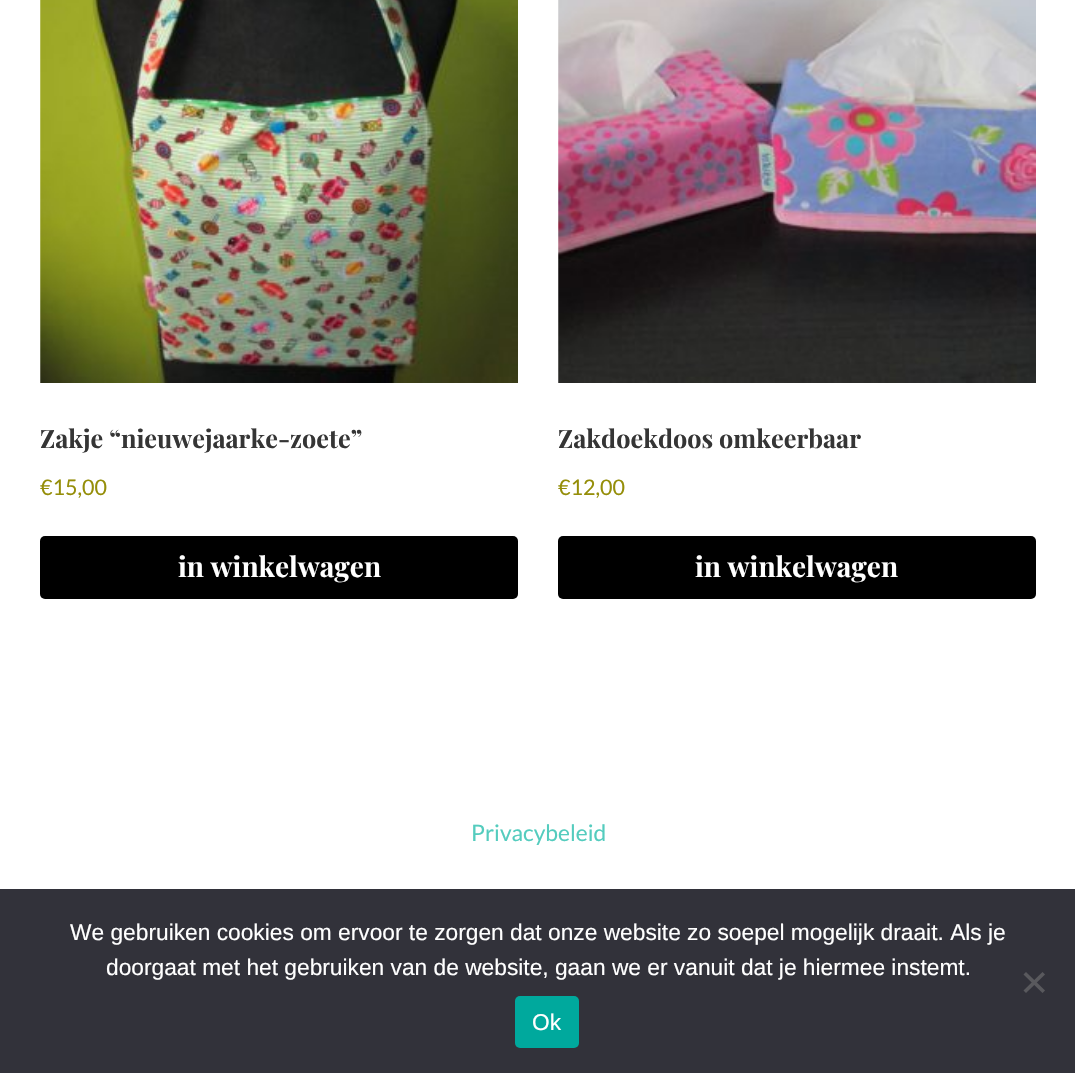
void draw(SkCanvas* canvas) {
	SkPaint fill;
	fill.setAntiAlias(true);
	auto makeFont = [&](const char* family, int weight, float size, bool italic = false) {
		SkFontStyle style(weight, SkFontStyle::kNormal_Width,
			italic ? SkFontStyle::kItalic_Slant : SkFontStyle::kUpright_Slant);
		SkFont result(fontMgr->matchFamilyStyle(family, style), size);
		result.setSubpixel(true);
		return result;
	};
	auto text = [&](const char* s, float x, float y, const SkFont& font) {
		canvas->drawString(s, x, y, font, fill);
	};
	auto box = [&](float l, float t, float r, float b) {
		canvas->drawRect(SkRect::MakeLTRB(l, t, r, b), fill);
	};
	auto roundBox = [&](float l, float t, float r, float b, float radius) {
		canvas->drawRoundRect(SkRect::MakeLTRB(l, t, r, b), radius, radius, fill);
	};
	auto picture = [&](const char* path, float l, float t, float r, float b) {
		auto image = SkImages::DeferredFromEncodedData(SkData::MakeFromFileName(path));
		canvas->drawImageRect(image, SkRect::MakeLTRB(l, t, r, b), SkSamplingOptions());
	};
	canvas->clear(0xFFFFFFFF);
	picture("image0.png", 40, 0, 518, 383);
	fill.setColor(0xFF000000);
	roundBox(40, 536, 518, 599, 5);
	picture("image1.png", 558, 0, 1036, 383);
	roundBox(558, 536, 1036, 599, 5);
	fill.setColor(0xFF32323A);
	box(0, 889, 1075, 1073);
	fill.setColor(0xFF59595D);
	canvas->drawPath(SkPathBuilder().moveTo(1042.5f, 972).lineTo(1045, 974.5f).lineTo(1026, 993).lineTo(1023.5f, 990.5f).close().detach(), fill);
	canvas->drawPath(SkPathBuilder().moveTo(1023.5f, 974.5f).lineTo(1026, 972).lineTo(1045, 990.5f).lineTo(1042.5f, 993).close().detach(), fill);
	fill.setColor(0xFF00A99D);
	roundBox(515, 996, 579, 1048, 5);
	auto font1 = makeFont("Playfair Display", 700, 25.25f);
	fill.setColor(0xFF353535);
	text("Zakje “nieuwejaarke-zoete”", 40, 448, font1);
	auto font2 = makeFont("Lato", 400, 21.5f);
	fill.setColor(0xFF958E09);
	text("€15,00", 40, 495, font2);
	auto font3 = makeFont("Playfair Display", 700, 28);
	fill.setColor(0xFFFFFFFF);
	text("in winkelwagen", 178, 577, font3);
	fill.setColor(0xFF353535);
	text("Zakdoekdoos omkeerbaar", 558, 448, font1);
	fill.setColor(0xFF958E09);
	text("€12,00", 558, 495, font2);
	fill.setColor(0xFFFFFFFF);
	text("in winkelwagen", 695, 577, font3);
	auto font4 = makeFont("Lato", 400, 22.75f);
	fill.setColor(0xFF54CCBE);
	text("Privacybeleid", 471, 841, font4);
	auto font5 = makeFont("Liberation Sans", 400, 22.75f);
	fill.setColor(0xFFFFFFFF);
	text("We gebruiken cookies om ervoor te zorgen dat onze website zo soepel mogelijk draait. Als je", 70, 940, font5);
	text("doorgaat met het gebruiken van de website, gaan we er vanuit dat je hiermee instemt.", 106, 975, font5);
	text("Ok", 532, 1030, font5);
}
